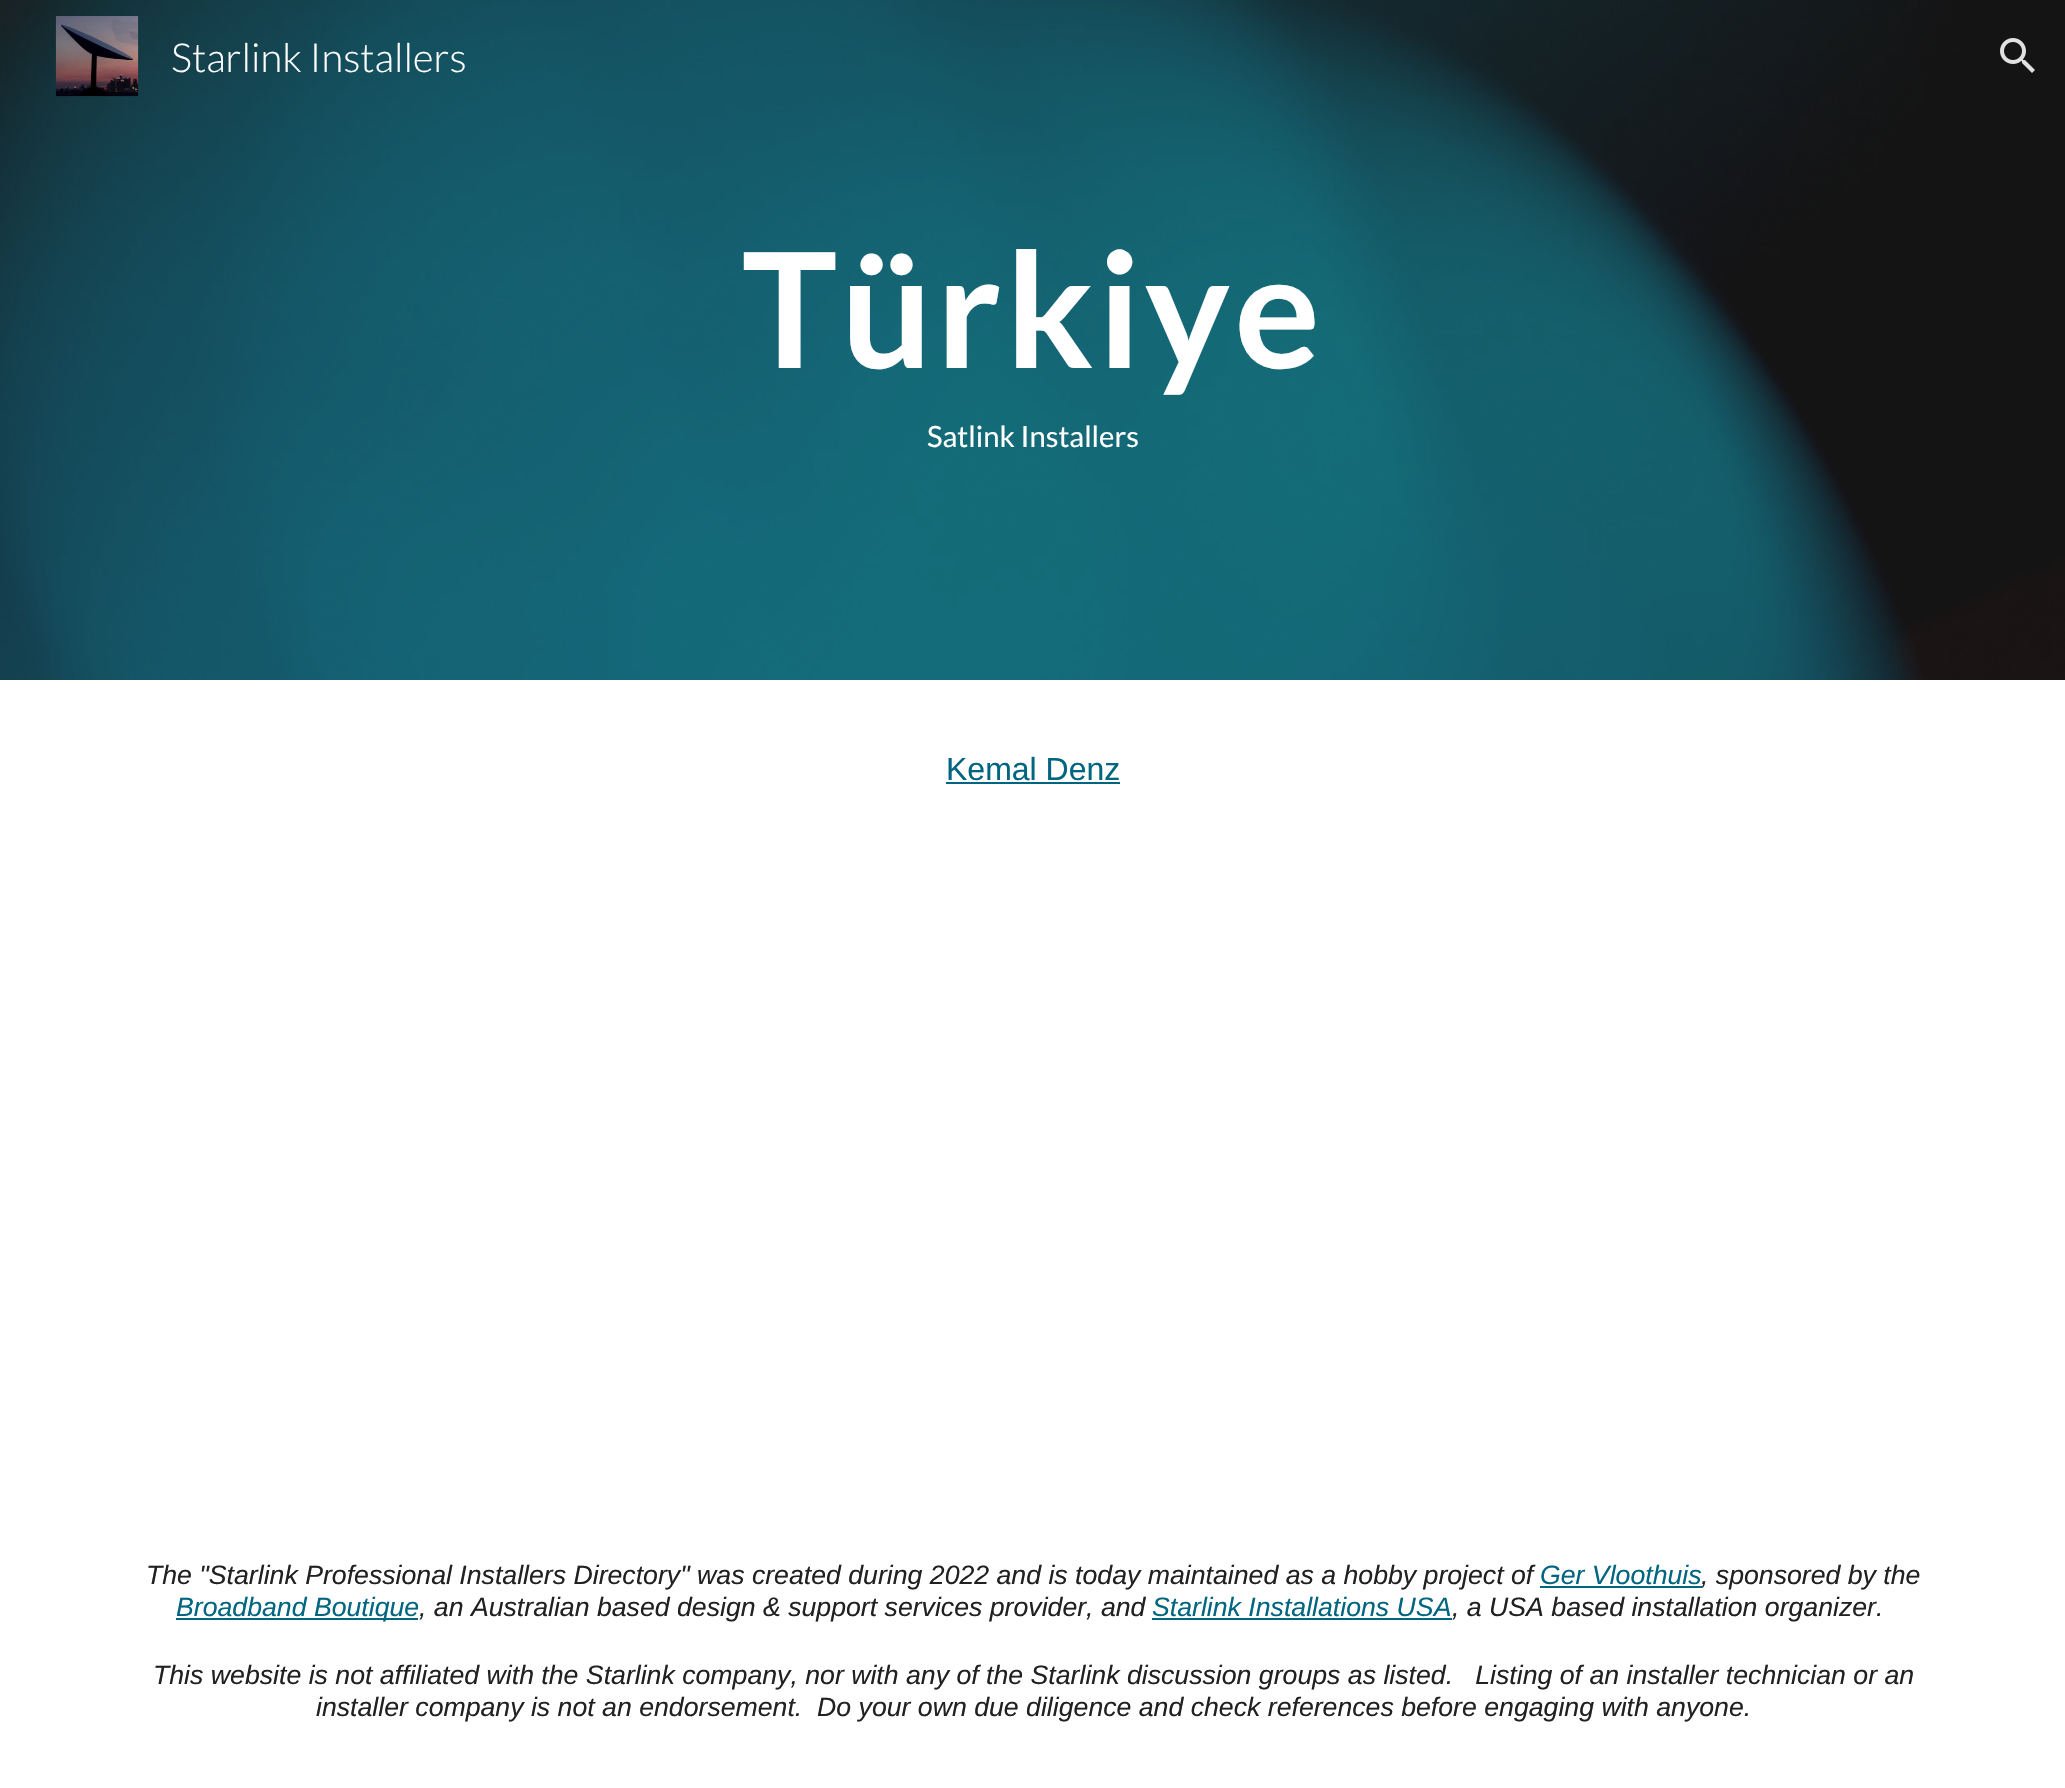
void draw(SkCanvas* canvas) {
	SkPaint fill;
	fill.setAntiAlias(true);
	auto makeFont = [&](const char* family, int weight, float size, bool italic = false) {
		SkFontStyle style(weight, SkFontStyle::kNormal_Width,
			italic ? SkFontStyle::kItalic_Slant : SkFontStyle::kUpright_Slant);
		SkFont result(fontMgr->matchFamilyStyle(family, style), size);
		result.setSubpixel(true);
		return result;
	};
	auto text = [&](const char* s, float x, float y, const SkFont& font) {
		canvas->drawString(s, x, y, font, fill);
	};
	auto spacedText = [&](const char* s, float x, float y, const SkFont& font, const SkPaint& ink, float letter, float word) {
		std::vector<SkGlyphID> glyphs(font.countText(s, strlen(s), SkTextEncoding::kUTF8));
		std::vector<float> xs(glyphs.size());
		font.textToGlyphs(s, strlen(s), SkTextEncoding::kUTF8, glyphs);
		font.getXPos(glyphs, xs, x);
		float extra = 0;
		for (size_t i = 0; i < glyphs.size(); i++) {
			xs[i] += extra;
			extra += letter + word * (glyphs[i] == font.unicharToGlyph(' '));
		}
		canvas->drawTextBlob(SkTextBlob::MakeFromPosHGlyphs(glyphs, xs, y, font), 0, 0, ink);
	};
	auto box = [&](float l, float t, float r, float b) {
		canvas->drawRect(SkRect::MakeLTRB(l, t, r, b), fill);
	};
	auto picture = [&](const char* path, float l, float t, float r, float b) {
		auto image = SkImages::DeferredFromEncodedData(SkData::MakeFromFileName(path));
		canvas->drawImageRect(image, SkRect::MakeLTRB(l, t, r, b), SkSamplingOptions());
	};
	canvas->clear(0xFFFFFFFF);
	picture("image2.png", 0, 0, 2065, 680);
	picture("image0.png", 55, 16, 139, 97);
	picture("image1.png", 2000, 38, 2035, 73);
	fill.setColor(0xFF006580);
	box(946, 782, 1120, 784);
	box(1540, 1586, 1702, 1588);
	box(176, 1618, 418, 1620);
	box(1152, 1618, 1452, 1620);
	auto font1 = makeFont("Lato", 300, 40);
	fill.setColor(0xFFFFFFFF);
	text("Starlink Installers", 171, 72, font1);
	auto font2 = makeFont("Lato", 700, 160);
	spacedText("Türkiye", 742, 368, font2, fill, 4, 0);
	auto font3 = makeFont("Lato", 400, 29.25f);
	text("Satlink Installers", 927, 447, font3);
	auto font4 = makeFont("Liberation Sans", 400, 32);
	fill.setColor(0xFF006580);
	text("Kemal Denz", 946, 780, font4);
	auto font5 = makeFont("Liberation Sans", 400, 26.67f, true);
	fill.setColor(0xFF212121);
	text("The \"Starlink Professional Installers Directory\" was created during 2022 and is today maintained as a hobby project of", 146, 1584, font5);
	fill.setColor(0xFF006580);
	text("Ger Vloothuis", 1540, 1584, font5);
	fill.setColor(0xFF212121);
	text(", sponsored by the", 1701, 1584, font5);
	fill.setColor(0xFF006580);
	text("Broadband Boutique", 176, 1616, font5);
	fill.setColor(0xFF212121);
	text(", an Australian based design & support services provider, and", 419, 1616, font5);
	fill.setColor(0xFF006580);
	text("Starlink Installations USA", 1152, 1616, font5);
	fill.setColor(0xFF212121);
	text(", a USA based installation organizer.", 1452, 1616, font5);
	text("This website is not affiliated with the Starlink company, nor with any of the Starlink discussion groups as listed.   Listing of an installer technician or an", 153, 1684, font5);
	text("installer company is not an endorsement.  Do your own due diligence and check references before engaging with anyone.", 316, 1716, font5);
}
